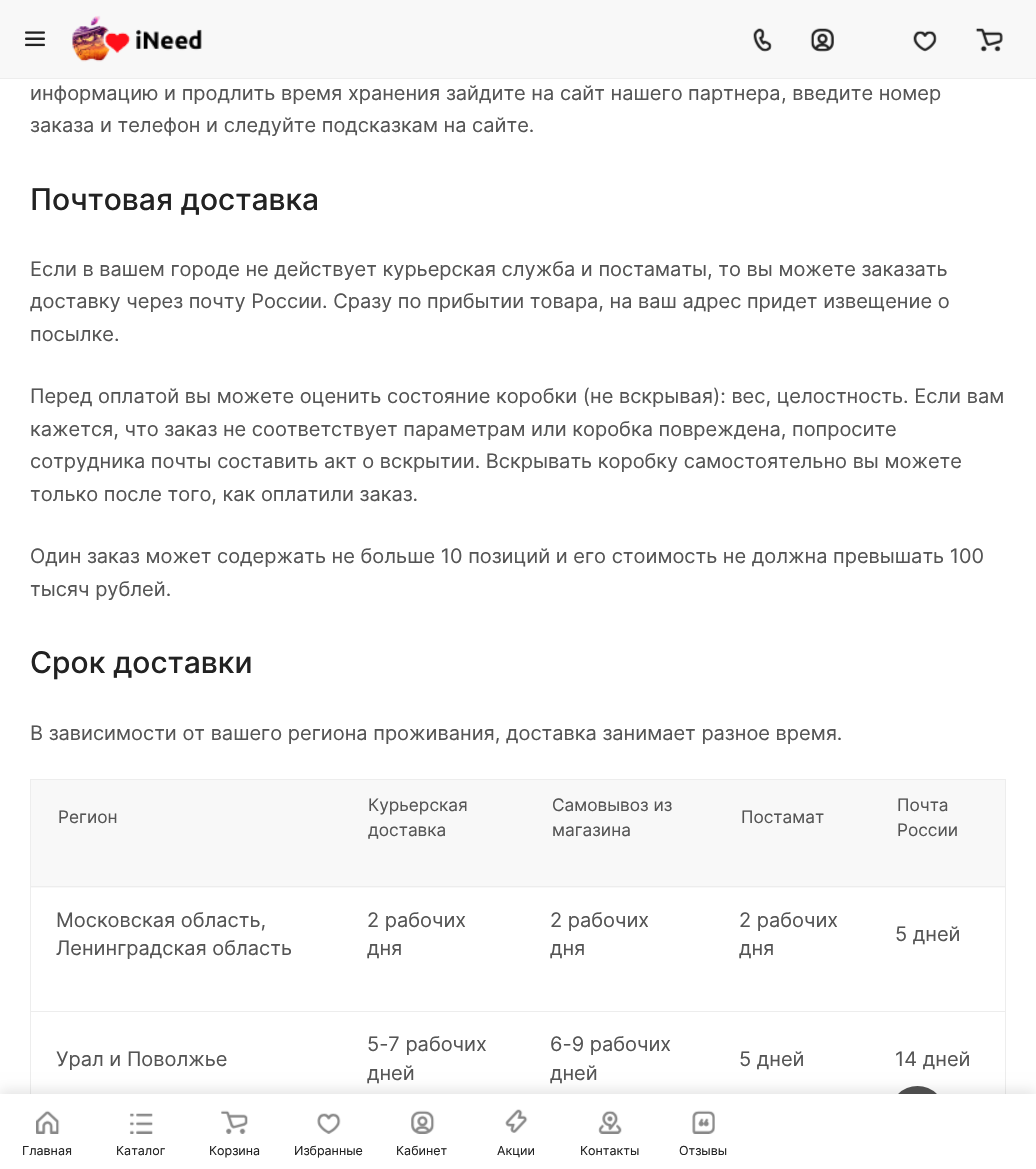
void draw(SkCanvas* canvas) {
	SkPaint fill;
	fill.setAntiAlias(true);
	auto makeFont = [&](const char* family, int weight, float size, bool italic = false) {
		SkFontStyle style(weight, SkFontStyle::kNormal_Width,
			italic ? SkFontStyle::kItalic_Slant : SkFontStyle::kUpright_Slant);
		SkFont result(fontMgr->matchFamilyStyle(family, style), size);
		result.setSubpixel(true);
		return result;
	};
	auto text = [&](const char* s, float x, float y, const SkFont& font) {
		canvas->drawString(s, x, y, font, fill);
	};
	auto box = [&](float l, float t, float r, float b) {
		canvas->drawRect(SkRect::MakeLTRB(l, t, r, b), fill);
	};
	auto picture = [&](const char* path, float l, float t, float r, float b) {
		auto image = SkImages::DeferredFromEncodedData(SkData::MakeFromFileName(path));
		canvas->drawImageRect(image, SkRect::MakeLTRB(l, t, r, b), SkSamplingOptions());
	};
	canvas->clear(0xFFFFFFFF);
	fill.setColor(0xFFEDEDED);
	box(0, 78, 1036, 79);
	fill.setColor(0xFFF8F8F8);
	box(0, 0, 1036, 78);
	picture("image0.png", 25, 31, 45, 47);
	picture("image1.png", 72, 15, 202, 62);
	picture("image2.png", 753, 28, 772, 52);
	picture("image3.png", 810, 28, 834, 52);
	picture("image4.png", 913, 30, 937, 52);
	picture("image5.png", 975, 28, 1003, 52);
	fill.setColor(0xFFEDEDED);
	box(30, 779, 1006, 780);
	fill.setColor(0xFFF8F8F8);
	box(31, 780, 1005, 888);
	fill.setColor(0xFFEDEDED);
	box(1005, 886, 1006, 1094);
	box(30, 886, 31, 1094);
	box(30, 886, 1006, 887);
	box(1005, 779, 1006, 888);
	box(30, 779, 31, 888);
	box(30, 1011, 1006, 1012);
	fill.setColor(0xFF525252);
	canvas->drawCircle(917.5f, 1113.5f, 27.5f, fill);
	fill.setColor(0x1A000000);
	fill.setMaskFilter(SkMaskFilter::MakeBlur(kNormal_SkBlurStyle, 6));
	canvas->drawRect(SkRect::MakeLTRB(0, 1090, 1036, 1166), fill);
	fill.setMaskFilter(nullptr);
	fill.setColor(0xFFFFFFFF);
	box(0, 1094, 1036, 1169);
	picture("image6.png", 36, 1110, 60, 1134);
	picture("image7.png", 129, 1113, 153, 1134);
	picture("image8.png", 221, 1110, 248, 1134);
	picture("image9.png", 317, 1113, 341, 1134);
	picture("image10.png", 411, 1110, 435, 1134);
	picture("image11.png", 505, 1109, 528, 1133);
	picture("image12.png", 598, 1110, 622, 1134);
	picture("image13.png", 692, 1110, 715, 1134);
	auto font1 = makeFont("Inter", 400, 20);
	fill.setColor(0xFF555555);
	text("информацию и продлить время хранения зайдите на сайт нашего", 30, 100, font1);
	text("партнера", 688, 100, font1);
	text(", введите номер", 781, 100, font1);
	text("заказа и телефон и следуйте подсказкам на сайте.", 30, 132, font1);
	auto font2 = makeFont("Inter", 500, 30);
	fill.setColor(0xFF222222);
	text("Почтовая доставка", 30, 210, font2);
	fill.setColor(0xFF555555);
	text("Если в вашем городе не действует курьерская служба и постаматы, то вы можете заказать", 30, 276, font1);
	text("доставку через почту России. Сразу по прибытии товара, на ваш адрес придет извещение о", 30, 308, font1);
	text("посылке.", 30, 341, font1);
	text("Перед оплатой вы можете оценить состояние коробки (не вскрывая): вес, целостность. Если вам", 30, 403, font1);
	text("кажется, что заказ не соответствует параметрам или коробка повреждена, попросите", 30, 436, font1);
	text("сотрудника почты составить акт о вскрытии. Вскрывать коробку самостоятельно вы можете", 30, 468, font1);
	text("только после того, как оплатили заказ.", 30, 501, font1);
	text("Один заказ может содержать не больше 10 позиций и его стоимость не должна превышать 100", 30, 563, font1);
	text("тысяч рублей.", 30, 596, font1);
	fill.setColor(0xFF222222);
	text("Срок доставки", 30, 673, font2);
	fill.setColor(0xFF555555);
	text("В зависимости от вашего региона проживания, доставка занимает разное время.", 30, 740, font1);
	auto font3 = makeFont("Inter", 400, 17.25f);
	text("Регион", 58, 823, font3);
	text("Курьерская", 368, 811, font3);
	text("доставка", 368, 836, font3);
	text("Самовывоз из", 552, 811, font3);
	text("магазина", 552, 836, font3);
	text("Постамат", 741, 823, font3);
	text("Почта", 897, 811, font3);
	text("России", 897, 836, font3);
	text("Московская область,", 56, 927, font1);
	text("Ленинградская область", 56, 955, font1);
	text("2 рабочих", 367, 927, font1);
	text("дня", 367, 955, font1);
	text("2 рабочих", 550, 927, font1);
	text("дня", 550, 955, font1);
	text("2 рабочих", 739, 927, font1);
	text("дня", 739, 955, font1);
	text("5 дней", 895, 941, font1);
	text("Урал и Поволжье", 56, 1066, font1);
	text("5-7 рабочих", 367, 1051, font1);
	text("дней", 367, 1080, font1);
	text("6-9 рабочих", 550, 1051, font1);
	text("дней", 550, 1080, font1);
	text("5 дней", 739, 1066, font1);
	text("14 дней", 895, 1066, font1);
	auto font4 = makeFont("Inter", 400, 12.5f);
	fill.setColor(0xFF222222);
	text("Главная", 22, 1155, font4);
	text("Каталог", 116, 1155, font4);
	text("Корзина", 209, 1155, font4);
	text("Избранные", 294, 1155, font4);
	text("Кабинет", 396, 1155, font4);
	text("Акции", 497, 1155, font4);
	text("Контакты", 580, 1155, font4);
	text("Отзывы", 679, 1155, font4);
}
